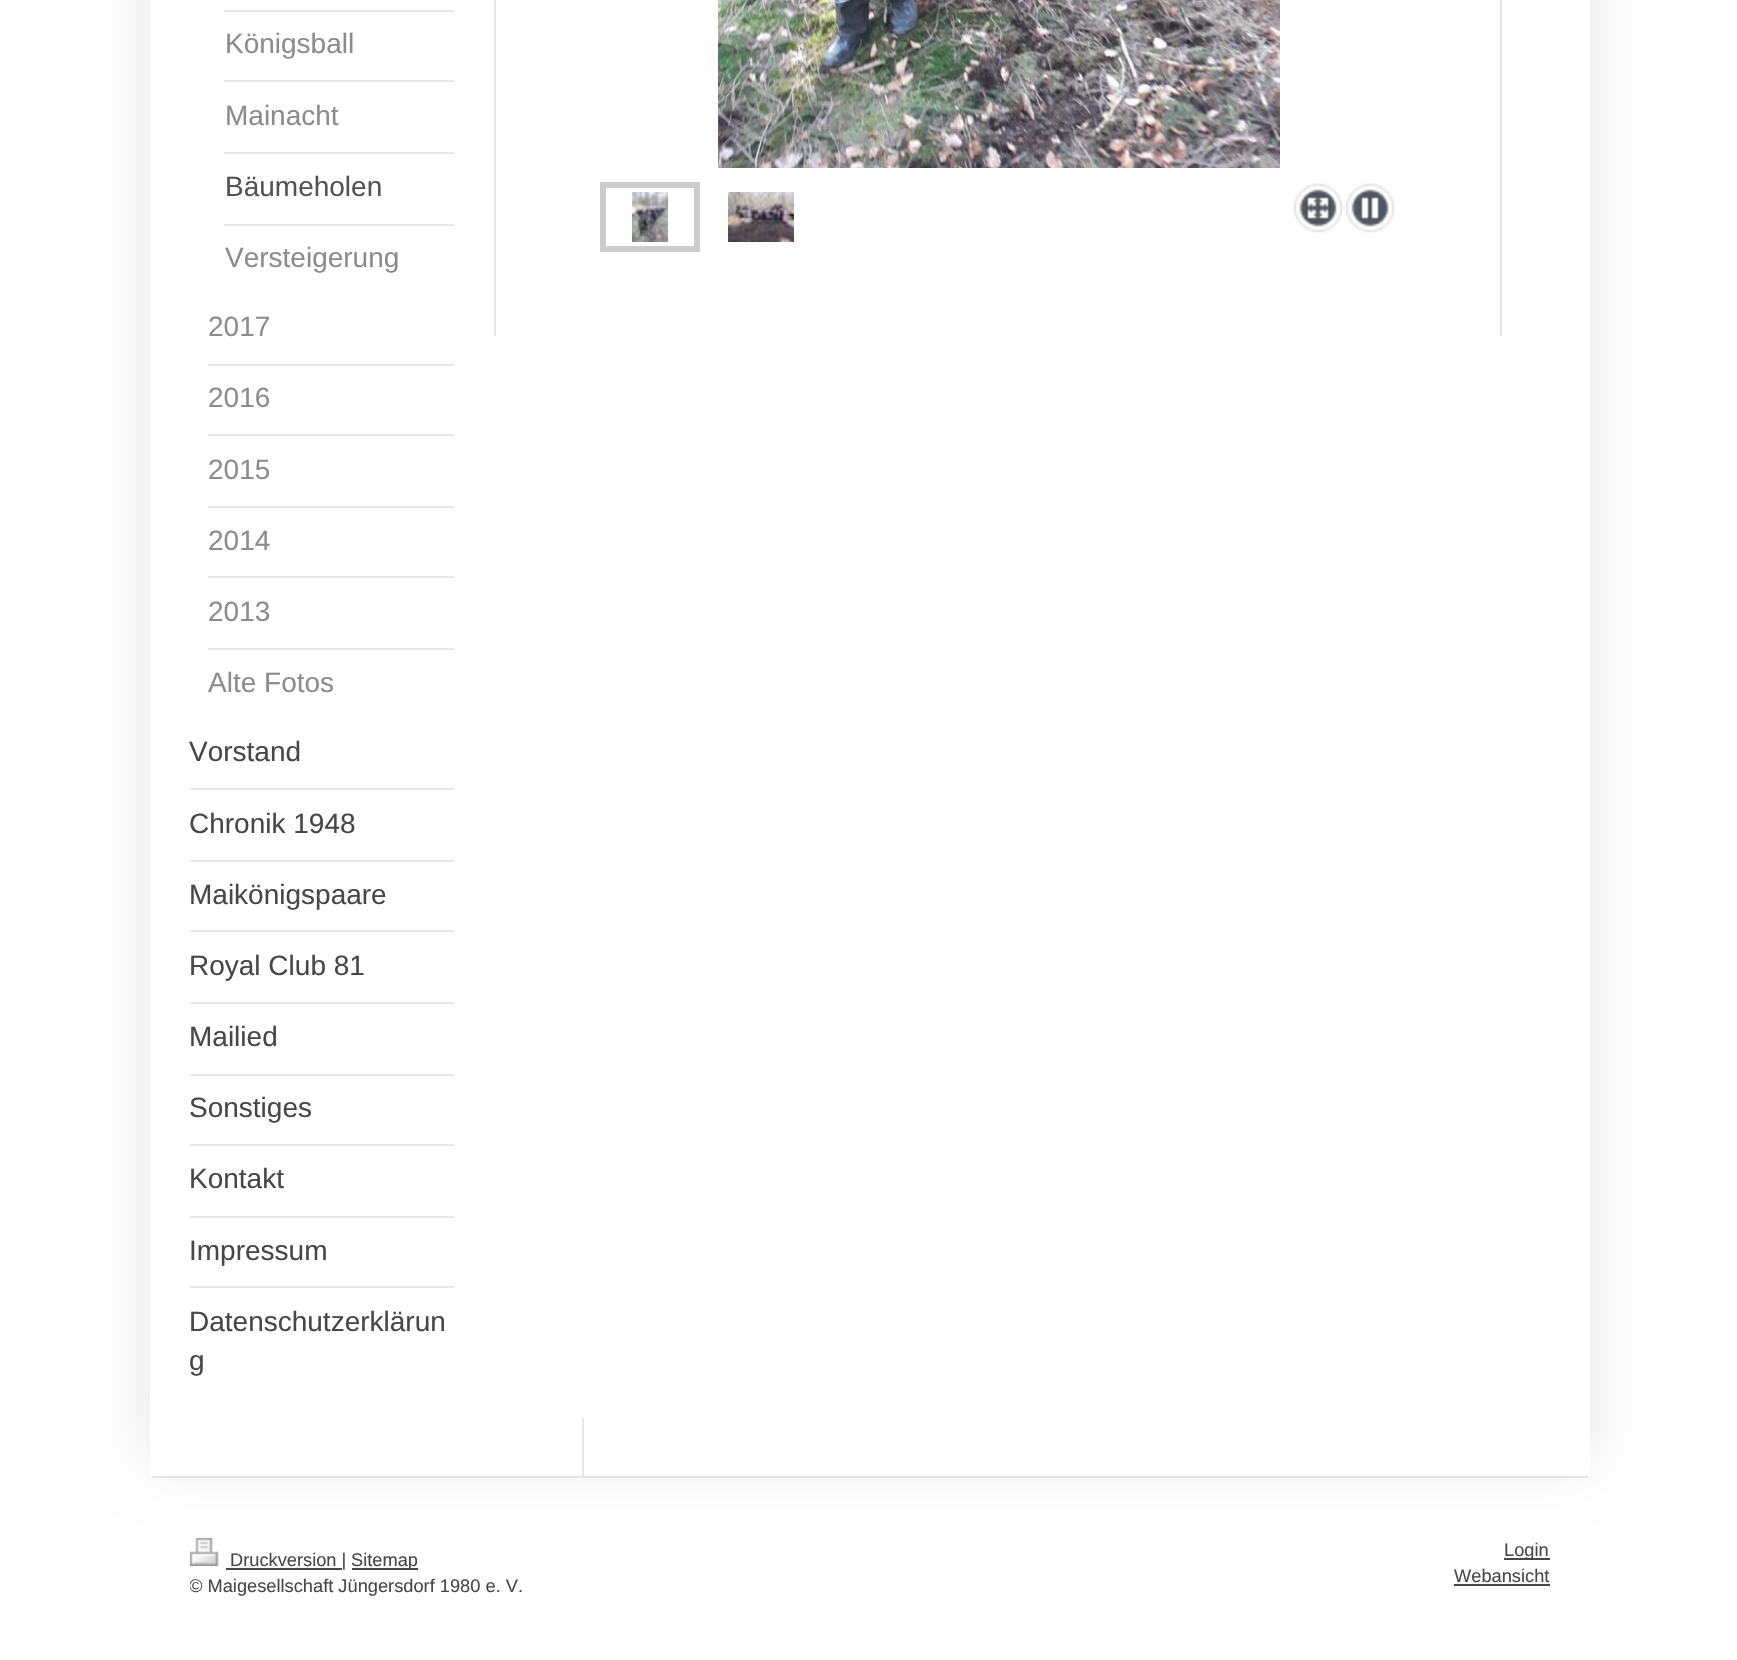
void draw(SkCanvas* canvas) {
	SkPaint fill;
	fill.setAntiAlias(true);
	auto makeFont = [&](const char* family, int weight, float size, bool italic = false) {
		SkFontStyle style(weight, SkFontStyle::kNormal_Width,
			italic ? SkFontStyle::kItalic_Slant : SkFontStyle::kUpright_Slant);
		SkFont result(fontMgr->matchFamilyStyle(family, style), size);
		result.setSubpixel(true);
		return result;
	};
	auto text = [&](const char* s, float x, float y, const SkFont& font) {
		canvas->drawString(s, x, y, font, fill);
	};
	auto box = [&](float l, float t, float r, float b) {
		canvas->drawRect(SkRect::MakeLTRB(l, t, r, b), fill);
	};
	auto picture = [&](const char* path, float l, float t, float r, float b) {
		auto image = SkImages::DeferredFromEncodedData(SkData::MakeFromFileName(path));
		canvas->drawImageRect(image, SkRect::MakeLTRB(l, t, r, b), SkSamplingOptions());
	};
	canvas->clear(0xFFFFFFFF);
	canvas->save();
	canvas->clipPath(SkPathBuilder(SkPathFillType::kEvenOdd).moveTo(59, 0).lineTo(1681, 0).lineTo(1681, 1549).lineTo(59, 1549).close().moveTo(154, -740).lineTo(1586, -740).cubicTo(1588, -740, 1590, -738, 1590, -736).lineTo(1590, 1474).cubicTo(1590, 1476, 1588, 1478, 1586, 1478).lineTo(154, 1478).cubicTo(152, 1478, 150, 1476, 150, 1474).lineTo(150, -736).cubicTo(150, -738, 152, -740, 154, -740).close().detach(), true);
	fill.setColor(0x1A000000);
	fill.setMaskFilter(SkMaskFilter::MakeBlur(kNormal_SkBlurStyle, 30));
	canvas->drawRoundRect(SkRect::MakeLTRB(150, -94, 1590, 1458), 4, 4, fill);
	fill.setMaskFilter(nullptr);
	canvas->restore();
	fill.setColor(0xFFE6E6E6);
	box(152, 1476, 1588, 1478);
	box(224, 10, 454, 12);
	box(224, 80, 454, 82);
	box(224, 152, 454, 154);
	box(224, 224, 454, 226);
	box(208, 364, 454, 366);
	box(208, 434, 454, 436);
	box(208, 506, 454, 508);
	box(208, 576, 454, 578);
	box(208, 648, 454, 650);
	box(190, 788, 454, 790);
	box(190, 860, 454, 862);
	box(190, 930, 454, 932);
	box(190, 1002, 454, 1004);
	box(190, 1074, 454, 1076);
	box(190, 1144, 454, 1146);
	box(190, 1216, 454, 1218);
	box(190, 1286, 454, 1288);
	box(1500, 0, 1502, 336);
	box(494, 0, 496, 336);
	picture("image0.png", 718, 0, 1280, 168);
	fill.setStyle(SkPaint::kStroke_Style);
	fill.setStrokeWidth(6);
	fill.setColor(0xFFCCCCCC);
	canvas->drawRect(SkRect::MakeLTRB(603, 185, 697, 249), fill);
	picture("image1.png", 632, 192, 668, 242);
	picture("image2.png", 728, 192, 794, 242);
	picture("image3.png", 1293, 183, 1344, 233);
	picture("image4.png", 1345, 183, 1396, 233);
	fill.setStyle(SkPaint::kFill_Style);
	fill.setColor(0xFFE6E6E6);
	box(582, 1418, 584, 1476);
	picture("image5.png", 190, 1538, 219, 1566);
	fill.setColor(0xFF474747);
	box(226, 1568, 342, 1570);
	box(352, 1568, 418, 1570);
	box(1504, 1558, 1550, 1560);
	box(1454, 1584, 1550, 1586);
	auto font1 = makeFont("Liberation Sans", 400, 28);
	fill.setColor(0xFF8C8C8C);
	text("Königsball", 225, 53, font1);
	text("Mainacht", 225, 125, font1);
	fill.setColor(0xFF535353);
	text("Bäumeholen", 225, 196, font1);
	fill.setColor(0xFF8C8C8C);
	text("Versteigerung", 225, 267, font1);
	text("2017", 208, 336, font1);
	text("2016", 208, 407, font1);
	text("2015", 208, 479, font1);
	text("2014", 208, 550, font1);
	text("2013", 208, 621, font1);
	text("Alte Fotos", 208, 692, font1);
	fill.setColor(0xFF474747);
	text("Vorstand", 189, 761, font1);
	text("Chronik 1948", 189, 833, font1);
	text("Maikönigspaare", 189, 904, font1);
	text("Royal Club 81", 189, 975, font1);
	text("Mailied", 189, 1046, font1);
	text("Sonstiges", 189, 1117, font1);
	text("Kontakt", 189, 1188, font1);
	text("Impressum", 189, 1260, font1);
	text("Datenschutzerklärun", 189, 1331, font1);
	text("g", 189, 1370, font1);
	auto font2 = makeFont("Liberation Sans", 400, 18.25f);
	text("Druckversion |", 230, 1566, font2);
	text("Sitemap", 351, 1566, font2);
	canvas->save();
	canvas->clipRect(SkRect::MakeLTRB(190, 1538, 1550, 1600));
	text("© Maigesellschaft Jüngersdorf 1980 e. V.", 189, 1592, font2);
	canvas->restore();
	text("Login", 1504, 1556, font2);
	text("Webansicht", 1454, 1582, font2);
}
